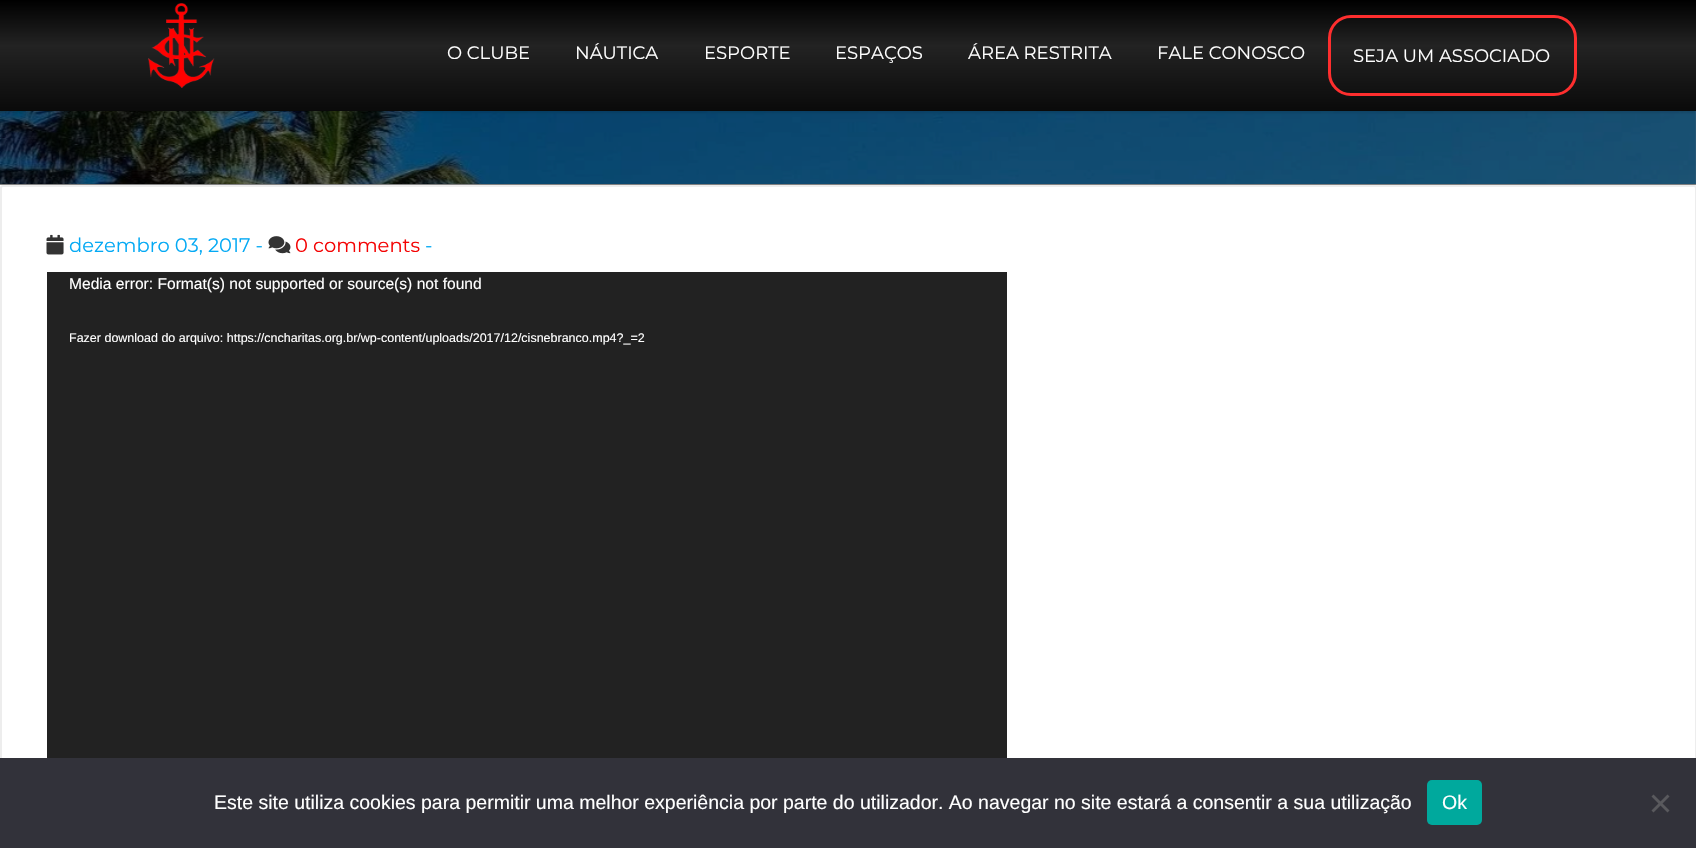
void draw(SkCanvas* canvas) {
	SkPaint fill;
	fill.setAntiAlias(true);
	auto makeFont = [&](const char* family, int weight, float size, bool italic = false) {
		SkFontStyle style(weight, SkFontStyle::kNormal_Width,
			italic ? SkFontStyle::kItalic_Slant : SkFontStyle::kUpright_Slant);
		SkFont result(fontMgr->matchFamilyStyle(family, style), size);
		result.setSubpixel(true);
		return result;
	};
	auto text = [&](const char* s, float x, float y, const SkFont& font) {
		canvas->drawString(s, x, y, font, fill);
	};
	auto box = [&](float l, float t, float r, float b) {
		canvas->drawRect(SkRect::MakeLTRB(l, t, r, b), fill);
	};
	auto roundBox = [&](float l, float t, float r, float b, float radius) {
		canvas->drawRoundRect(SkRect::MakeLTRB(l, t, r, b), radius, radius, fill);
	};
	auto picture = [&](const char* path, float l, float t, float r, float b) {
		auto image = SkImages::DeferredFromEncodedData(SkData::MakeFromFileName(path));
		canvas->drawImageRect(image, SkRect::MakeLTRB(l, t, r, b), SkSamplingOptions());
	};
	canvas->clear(0xFFFFFFFF);
	fill.setColor(0xFF808080);
	box(0, 111, 1696, 185);
	picture("image1.png", 0, 111, 1696, 184);
	fill.setColor(0x1A000000);
	fill.setMaskFilter(SkMaskFilter::MakeBlur(kNormal_SkBlurStyle, 1));
	canvas->drawRect(SkRect::MakeLTRB(-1, 2, 1695, 113), fill);
	fill.setMaskFilter(nullptr);
	{
		const SkColor colors[] = {0xFF000000, 0xFF232323, 0xFF0A0A0A};
		const float stops[] = {0, 0.41f, 1};
		const SkPoint ends[] = {{848, 0}, {848, 111}};
		fill.setShader(SkGradientShader::MakeLinear(ends, colors, stops, 3, SkTileMode::kClamp));
		fill.setAlpha(255);
	}
	box(0, 0, 1696, 111);
	picture("image0.png", 148, 3, 215, 88);
	fill.setStyle(SkPaint::kStroke_Style);
	fill.setStrokeWidth(3);
	fill.setShader(nullptr);
	fill.setColor(0xFFFE2E2E);
	canvas->drawRoundRect(SkRect::MakeLTRB(1329.5f, 16.5f, 1575.5f, 94.5f), 21.5f, 21.5f, fill);
	fill.setStrokeWidth(2);
	fill.setColor(0xFFEDEDED);
	canvas->drawRoundRect(SkRect::MakeLTRB(1, 186, 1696, 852), 2, 2, fill);
	picture("image2.png", 46, 234, 64, 255);
	picture("image3.png", 268, 236, 291, 254);
	fill.setStyle(SkPaint::kFill_Style);
	fill.setColor(0xFF222222);
	box(47, 272, 1007, 758);
	fill.setColor(0xFF32323A);
	box(0, 758, 1696, 848);
	fill.setColor(0xFF00A99D);
	roundBox(1427, 780, 1482, 825, 5);
	fill.setColor(0xFF59595D);
	canvas->drawPath(SkPathBuilder().moveTo(1667.5f, 794.5f).lineTo(1669.5f, 796.5f).lineTo(1653.5f, 812.5f).lineTo(1651.5f, 810.5f).close().detach(), fill);
	canvas->drawPath(SkPathBuilder().moveTo(1651.5f, 796.5f).lineTo(1653.5f, 794.5f).lineTo(1669.5f, 810.5f).lineTo(1667.5f, 812.5f).close().detach(), fill);
	auto font1 = makeFont("Montserrat", 400, 18);
	fill.setColor(0xFFFFFFFF);
	text("O CLUBE", 447, 59, font1);
	text("NÁUTICA", 575, 59, font1);
	text("ESPORTE", 704, 59, font1);
	text("ESPAÇOS", 835, 59, font1);
	text("ÁREA RESTRITA", 968, 59, font1);
	text("FALE CONOSCO", 1157, 59, font1);
	text("SEJA UM ASSOCIADO", 1353, 62, font1);
	auto font2 = makeFont("Montserrat", 400, 19.5f);
	fill.setColor(0xFF03A9F4);
	text("dezembro 03, 2017 -", 69, 252, font2);
	fill.setColor(0xFFF40303);
	text("0 comments", 295, 252, font2);
	fill.setColor(0xFF03A9F4);
	text("-", 425, 252, font2);
	auto font3 = makeFont("Liberation Sans", 400, 15.6f);
	fill.setColor(0xFFFFFFFF);
	text("Media error: Format(s) not supported or source(s) not found", 69, 289, font3);
	auto font4 = makeFont("Liberation Sans", 400, 12.5f);
	text("Fazer download do arquivo: https://cncharitas.org.br/wp-content/uploads/2017/12/cisnebranco.mp4?_=2", 69, 342, font4);
	auto font5 = makeFont("Liberation Sans", 400, 19.5f);
	text("Este site utiliza cookies para permitir uma melhor experiência por parte do utilizador. Ao navegar no site estará a consentir a sua utilização", 214, 809, font5);
	text("Ok", 1442, 809, font5);
}
